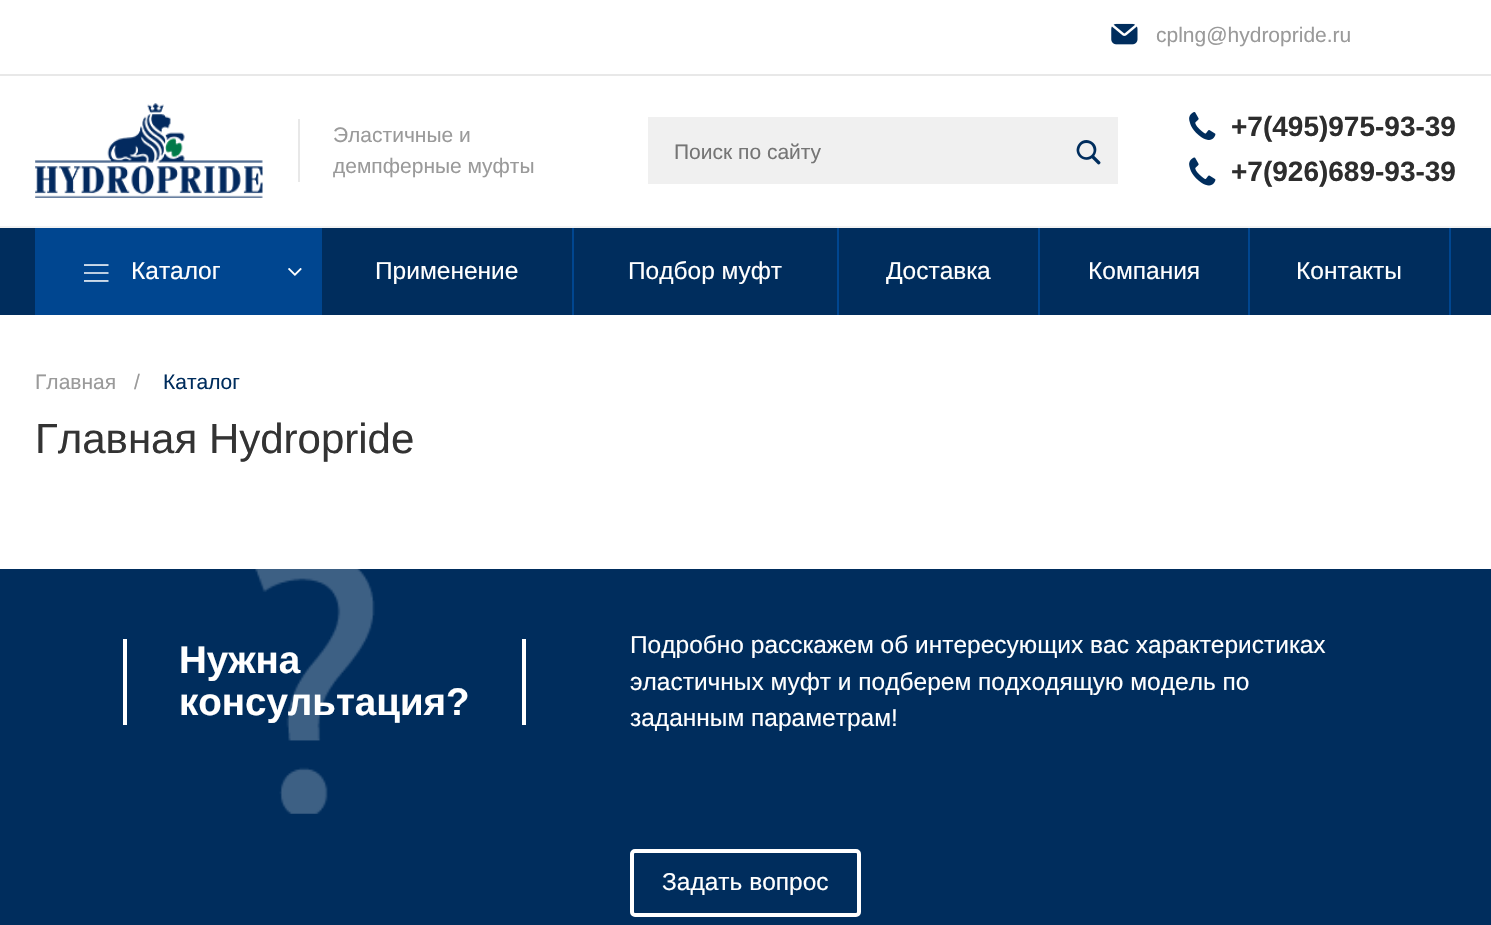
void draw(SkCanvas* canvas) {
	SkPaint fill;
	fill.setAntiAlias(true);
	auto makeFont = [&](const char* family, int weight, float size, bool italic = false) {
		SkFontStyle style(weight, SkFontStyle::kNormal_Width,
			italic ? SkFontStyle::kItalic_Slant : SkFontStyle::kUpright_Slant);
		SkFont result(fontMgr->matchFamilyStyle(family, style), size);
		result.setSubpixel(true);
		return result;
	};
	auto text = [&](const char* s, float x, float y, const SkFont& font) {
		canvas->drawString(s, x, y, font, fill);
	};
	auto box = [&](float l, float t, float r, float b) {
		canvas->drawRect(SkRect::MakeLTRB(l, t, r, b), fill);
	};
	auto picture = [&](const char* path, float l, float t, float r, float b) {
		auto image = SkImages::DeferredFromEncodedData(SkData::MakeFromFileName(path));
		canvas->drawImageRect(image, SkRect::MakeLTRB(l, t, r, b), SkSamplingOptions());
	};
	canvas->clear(0xFFFFFFFF);
	fill.setColor(0xFFE8E8E8);
	box(0, 74, 1491, 76);
	picture("image0.png", 1111, 23, 1138, 45);
	fill.setColor(0xFFF2F2F2);
	box(0, 226, 1491, 228);
	picture("image1.png", 35, 103, 263, 198);
	fill.setColor(0xFFE8E8E8);
	box(298, 119, 300, 182);
	fill.setColor(0xFFF0F0F0);
	box(648, 117, 1118, 184);
	picture("image2.png", 1076, 140, 1101, 165);
	picture("image3.png", 1189, 112, 1216, 140);
	picture("image4.png", 1189, 157, 1216, 186);
	fill.setColor(0xFF002D5D);
	box(0, 228, 1491, 315);
	fill.setColor(0xFF004690);
	box(35, 228, 322, 315);
	picture("image5.png", 84, 264, 109, 282);
	picture("image6.png", 288, 268, 302, 276);
	box(572, 228, 574, 315);
	box(837, 228, 839, 315);
	box(1038, 228, 1040, 315);
	box(1248, 228, 1250, 315);
	box(1449, 228, 1451, 315);
	fill.setColor(0xFF002D5D);
	box(0, 569, 1491, 925);
	picture("image7.png", 255, 569, 375, 814);
	fill.setColor(0xFFFFFFFF);
	box(522, 639, 526, 725);
	box(123, 639, 127, 725);
	fill.setStyle(SkPaint::kStroke_Style);
	fill.setStrokeWidth(4);
	canvas->drawRoundRect(SkRect::MakeLTRB(632, 851, 859, 915), 3, 3, fill);
	auto font1 = makeFont("Liberation Sans", 400, 21);
	fill.setStyle(SkPaint::kFill_Style);
	fill.setColor(0xFF9A9A9A);
	text("cplng@hydropride.ru", 1156, 42, font1);
	text("Эластичные и", 333, 142, font1);
	text("демпферные муфты", 333, 173, font1);
	fill.setColor(0xFF757575);
	text("Поиск по сайту", 674, 159, font1);
	auto font2 = makeFont("Liberation Sans", 700, 28);
	fill.setColor(0xFF2D2D2D);
	text("+7(495)975-93-39", 1231, 136, font2);
	text("+7(926)689-93-39", 1231, 181, font2);
	auto font3 = makeFont("Liberation Sans", 400, 24.5f);
	fill.setColor(0xFFFFFFFF);
	text("Каталог", 131, 279, font3);
	text("Применение", 375, 279, font3);
	text("Подбор муфт", 628, 279, font3);
	text("Доставка", 886, 279, font3);
	text("Компания", 1088, 279, font3);
	text("Контакты", 1296, 279, font3);
	fill.setColor(0xFF9A9A9A);
	text("Главная", 35, 389, font1);
	text("/", 134, 389, font1);
	fill.setColor(0xFF002D5D);
	text("Каталог", 163, 389, font1);
	auto font4 = makeFont("Liberation Sans", 400, 42);
	fill.setColor(0xFF333333);
	text("Главная Hydropride", 35, 453, font4);
	auto font5 = makeFont("Liberation Sans", 700, 38.5f);
	fill.setColor(0xFFFFFFFF);
	text("Нужна", 179, 673, font5);
	text("консультация?", 179, 715, font5);
	text("Подробно расскажем об интересующих вас характеристиках", 630, 653, font3);
	text("эластичных муфт и подберем подходящую модель по", 630, 690, font3);
	text("заданным параметрам!", 630, 726, font3);
	text("Задать вопрос", 662, 890, font3);
}
